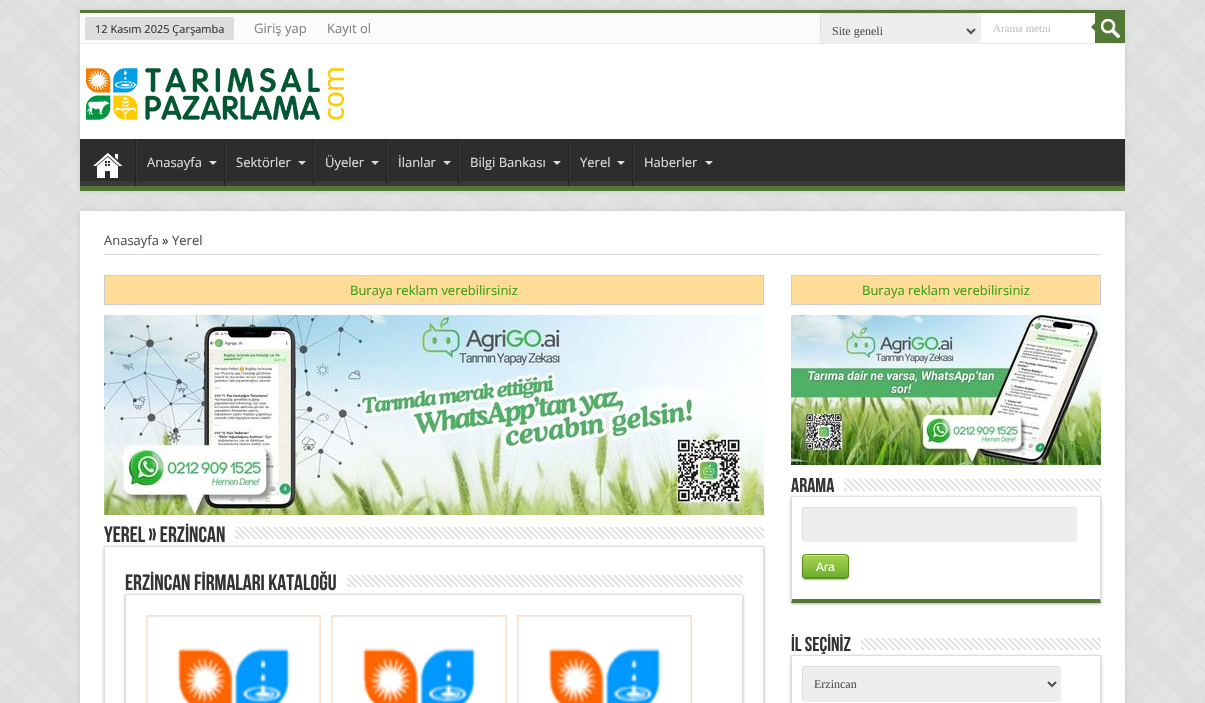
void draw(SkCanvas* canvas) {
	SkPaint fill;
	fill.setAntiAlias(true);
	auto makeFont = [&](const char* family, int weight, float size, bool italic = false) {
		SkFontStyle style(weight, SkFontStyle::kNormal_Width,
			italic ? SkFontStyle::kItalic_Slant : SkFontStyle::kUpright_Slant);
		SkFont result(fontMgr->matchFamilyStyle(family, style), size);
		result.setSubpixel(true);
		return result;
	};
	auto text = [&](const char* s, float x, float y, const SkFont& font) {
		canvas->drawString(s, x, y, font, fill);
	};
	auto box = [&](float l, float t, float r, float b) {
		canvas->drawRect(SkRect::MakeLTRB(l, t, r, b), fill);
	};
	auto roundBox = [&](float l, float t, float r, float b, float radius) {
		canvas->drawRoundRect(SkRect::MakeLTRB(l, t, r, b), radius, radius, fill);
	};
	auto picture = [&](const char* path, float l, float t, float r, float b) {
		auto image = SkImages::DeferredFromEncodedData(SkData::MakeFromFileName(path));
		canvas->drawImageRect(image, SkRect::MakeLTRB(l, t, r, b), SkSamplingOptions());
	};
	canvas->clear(0xFFFFFFFF);
	picture("image0.png", 0, 0, 1205, 703);
	fill.setColor(0xFFCACACA);
	fill.setMaskFilter(SkMaskFilter::MakeBlur(kNormal_SkBlurStyle, 2.5f));
	canvas->drawRect(SkRect::MakeLTRB(80, 10, 1125, 191), fill);
	fill.setMaskFilter(nullptr);
	fill.setColor(0xFFFFFFFF);
	box(80, 44, 1125, 139);
	fill.setColor(0xFFFBFBFB);
	box(80, 13, 1095, 43);
	fill.setColor(0xFF527835);
	box(80, 10, 1125, 13);
	fill.setColor(0xFFECECEC);
	box(80, 43, 1125, 44);
	fill.setColor(0xFFDDDDDD);
	roundBox(85, 17, 234, 40, 2);
	fill.setColor(0xFFEEEEEE);
	canvas->drawPath(SkPathBuilder().moveTo(823, 13).lineTo(977, 13).cubicTo(978.5f, 13, 980, 14.5f, 980, 16).lineTo(980, 43).lineTo(820, 43).lineTo(820, 16).cubicTo(820, 14.5f, 821.5f, 13, 823, 13).close().detach(), fill);
	fill.setColor(0xFFECECEC);
	box(980, 13, 981, 42);
	canvas->save();
	canvas->clipRect(SkRect::MakeLTRB(820, 13, 1125, 43));
	fill.setStyle(SkPaint::kStroke_Style);
	fill.setStrokeWidth(1);
	fill.setColor(0xFFF1F1F1);
	canvas->drawPath(SkPathBuilder().moveTo(979, 14).cubicTo(980.5f, 16, 979.5f, 28, 979.5f, 31).lineTo(979.5f, 41).cubicTo(979.5f, 42.5f, 980.5f, 48.5f, 977, 48.5f).lineTo(822, 48.5f).lineTo(821, 48).detach(), fill);
	fill.setColor(0xFFDDDDDD);
	canvas->drawPath(SkPathBuilder().moveTo(821, 48).cubicTo(819.5f, 46, 820.5f, 34, 820.5f, 31).lineTo(820.5f, 21).cubicTo(820.5f, 19.5f, 819.5f, 13.5f, 823, 13.5f).lineTo(978, 13.5f).lineTo(979, 14).detach(), fill);
	canvas->restore();
	fill.setStrokeWidth(2);
	fill.setColor(0xFF515151);
	canvas->drawPath(SkPathBuilder().moveTo(967, 29).lineTo(971, 33).lineTo(975, 29).detach(), fill);
	fill.setStyle(SkPaint::kFill_Style);
	fill.setColor(0xFFFFFFFF);
	box(981, 13, 1095, 42);
	fill.setColor(0xFF527835);
	canvas->drawPath(SkPathBuilder().moveTo(1095, 23).lineTo(1095, 31).lineTo(1091, 27).close().detach(), fill);
	box(1095, 13, 1125, 43);
	picture("image1.png", 1101, 19, 1120, 38);
	picture("image2.png", 86, 68, 344, 120);
	picture("image3.png", 80, 139, 1125, 186);
	box(80, 186, 1125, 191);
	picture("image4.png", 93, 153, 123, 178);
	fill.setColor(0xFF222222);
	box(135, 139, 136, 186);
	fill.setColor(0xFF383838);
	box(136, 139, 137, 186);
	fill.setColor(0xFFDDDDDD);
	canvas->drawPath(SkPathBuilder().moveTo(209, 161).lineTo(217, 161).lineTo(213, 165).close().detach(), fill);
	fill.setColor(0xFF222222);
	box(224, 139, 225, 186);
	fill.setColor(0xFF383838);
	box(225, 139, 226, 186);
	fill.setColor(0xFFDDDDDD);
	canvas->drawPath(SkPathBuilder().moveTo(298, 161).lineTo(306, 161).lineTo(302, 165).close().detach(), fill);
	fill.setColor(0xFF222222);
	box(313, 139, 314, 186);
	fill.setColor(0xFF383838);
	box(314, 139, 315, 186);
	fill.setColor(0xFFDDDDDD);
	canvas->drawPath(SkPathBuilder().moveTo(371, 161).lineTo(379, 161).lineTo(375, 165).close().detach(), fill);
	fill.setColor(0xFF222222);
	box(386, 139, 387, 186);
	fill.setColor(0xFF383838);
	box(387, 139, 388, 186);
	fill.setColor(0xFFDDDDDD);
	canvas->drawPath(SkPathBuilder().moveTo(443, 161).lineTo(451, 161).lineTo(447, 165).close().detach(), fill);
	fill.setColor(0xFF222222);
	box(458, 139, 459, 186);
	fill.setColor(0xFF383838);
	box(459, 139, 460, 186);
	fill.setColor(0xFFDDDDDD);
	canvas->drawPath(SkPathBuilder().moveTo(553, 161).lineTo(561, 161).lineTo(557, 165).close().detach(), fill);
	fill.setColor(0xFF222222);
	box(568, 139, 569, 186);
	fill.setColor(0xFF383838);
	box(569, 139, 570, 186);
	fill.setColor(0xFFDDDDDD);
	canvas->drawPath(SkPathBuilder().moveTo(617, 161).lineTo(625, 161).lineTo(621, 165).close().detach(), fill);
	fill.setColor(0xFF222222);
	box(632, 139, 633, 186);
	fill.setColor(0xFF383838);
	box(633, 139, 634, 186);
	fill.setColor(0xFFDDDDDD);
	canvas->drawPath(SkPathBuilder().moveTo(705, 161).lineTo(713, 161).lineTo(709, 165).close().detach(), fill);
	fill.setColor(0xFFCACACA);
	fill.setMaskFilter(SkMaskFilter::MakeBlur(kNormal_SkBlurStyle, 2.5f));
	canvas->drawRect(SkRect::MakeLTRB(80, 211, 1125, 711), fill);
	fill.setMaskFilter(nullptr);
	fill.setColor(0xFFFFFFFF);
	box(80, 211, 1125, 703);
	fill.setColor(0xFFDDDDDD);
	box(104, 254, 1101, 255);
	fill.setColor(0xFFFFDD99);
	canvas->drawRect(SkRect::MakeLTRB(104.5f, 275.5f, 763.5f, 304.5f), fill);
	fill.setStyle(SkPaint::kStroke_Style);
	fill.setStrokeWidth(1);
	fill.setColor(0xFFCCCCCC);
	canvas->drawRect(SkRect::MakeLTRB(104.5f, 275.5f, 763.5f, 304.5f), fill);
	picture("image5.png", 104, 315, 764, 515);
	picture("image6.png", 235, 527, 764, 539);
	canvas->save();
	canvas->clipPath(SkPathBuilder(SkPathFillType::kEvenOdd).moveTo(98, 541).lineTo(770, 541).lineTo(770, 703).lineTo(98, 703).close().moveTo(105, 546).lineTo(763, 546).cubicTo(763.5f, 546, 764, 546.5f, 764, 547).lineTo(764, 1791).cubicTo(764, 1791.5f, 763.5f, 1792, 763, 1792).lineTo(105, 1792).cubicTo(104.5f, 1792, 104, 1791.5f, 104, 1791).lineTo(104, 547).cubicTo(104, 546.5f, 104.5f, 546, 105, 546).close().detach(), true);
	fill.setStyle(SkPaint::kFill_Style);
	fill.setColor(0xFFB5B5B5);
	fill.setMaskFilter(SkMaskFilter::MakeBlur(kNormal_SkBlurStyle, 1.5f));
	canvas->drawRoundRect(SkRect::MakeLTRB(104, 547, 764, 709), 1, 1, fill);
	fill.setMaskFilter(nullptr);
	canvas->restore();
	fill.setColor(0xFFDDDDDD);
	canvas->drawPath(SkPathBuilder().moveTo(105, 546).lineTo(104, 546).lineTo(105, 547).lineTo(763, 547).lineTo(764, 546).lineTo(763, 546).close().detach(), fill);
	canvas->drawPath(SkPathBuilder().moveTo(764, 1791).lineTo(764, 547).lineTo(764, 546).lineTo(763, 547).lineTo(763, 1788).close().detach(), fill);
	canvas->drawPath(SkPathBuilder().moveTo(105, 547).lineTo(104, 546).lineTo(104, 547).lineTo(104, 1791).lineTo(105, 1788).close().detach(), fill);
	picture("image7.png", 347, 575, 743, 587);
	canvas->save();
	canvas->clipPath(SkPathBuilder(SkPathFillType::kEvenOdd).moveTo(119, 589).lineTo(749, 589).lineTo(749, 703).lineTo(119, 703).close().moveTo(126, 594).lineTo(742, 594).cubicTo(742.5f, 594, 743, 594.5f, 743, 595).lineTo(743, 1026).cubicTo(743, 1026.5f, 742.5f, 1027, 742, 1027).lineTo(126, 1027).cubicTo(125.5f, 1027, 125, 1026.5f, 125, 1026).lineTo(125, 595).cubicTo(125, 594.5f, 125.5f, 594, 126, 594).close().detach(), true);
	fill.setColor(0xFFB5B5B5);
	fill.setMaskFilter(SkMaskFilter::MakeBlur(kNormal_SkBlurStyle, 1.5f));
	canvas->drawRoundRect(SkRect::MakeLTRB(125, 595, 743, 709), 1, 1, fill);
	fill.setMaskFilter(nullptr);
	canvas->restore();
	fill.setColor(0xFFDDDDDD);
	box(126, 594, 742, 595);
	canvas->drawPath(SkPathBuilder().moveTo(743, 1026).lineTo(743, 595).lineTo(742, 594).lineTo(742, 595).lineTo(742, 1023).close().detach(), fill);
	canvas->drawPath(SkPathBuilder().moveTo(126, 595).lineTo(126, 594).lineTo(125, 595).lineTo(125, 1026).lineTo(126, 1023).close().detach(), fill);
	picture("image8.png", 146, 615, 321, 703);
	picture("image9.png", 331, 615, 507, 703);
	picture("image10.png", 517, 615, 692, 703);
	fill.setColor(0xFFFFDD99);
	canvas->drawRect(SkRect::MakeLTRB(791.5f, 275.5f, 1100.5f, 304.5f), fill);
	fill.setStyle(SkPaint::kStroke_Style);
	fill.setColor(0xFFCCCCCC);
	canvas->drawRect(SkRect::MakeLTRB(791.5f, 275.5f, 1100.5f, 304.5f), fill);
	picture("image11.png", 791, 315, 1101, 465);
	picture("image12.png", 844, 479, 1101, 491);
	canvas->save();
	canvas->clipPath(SkPathBuilder(SkPathFillType::kEvenOdd).moveTo(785, 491).lineTo(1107, 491).lineTo(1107, 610).lineTo(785, 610).close().moveTo(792, 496).lineTo(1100, 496).cubicTo(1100.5f, 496, 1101, 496.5f, 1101, 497).lineTo(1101, 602).cubicTo(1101, 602.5f, 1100.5f, 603, 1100, 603).lineTo(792, 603).cubicTo(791.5f, 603, 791, 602.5f, 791, 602).lineTo(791, 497).cubicTo(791, 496.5f, 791.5f, 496, 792, 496).close().detach(), true);
	fill.setStyle(SkPaint::kFill_Style);
	fill.setColor(0xFFB5B5B5);
	fill.setMaskFilter(SkMaskFilter::MakeBlur(kNormal_SkBlurStyle, 1.5f));
	canvas->drawRoundRect(SkRect::MakeLTRB(791, 497, 1101, 604), 1, 1, fill);
	fill.setMaskFilter(nullptr);
	canvas->restore();
	fill.setColor(0xFFDDDDDD);
	canvas->drawPath(SkPathBuilder().moveTo(792, 496).lineTo(791, 496).lineTo(792, 497).lineTo(1100, 497).lineTo(1101, 496).lineTo(1100, 496).close().detach(), fill);
	canvas->drawPath(SkPathBuilder().moveTo(1101, 602).lineTo(1101, 496).lineTo(1100, 497).lineTo(1100, 599).lineTo(1101, 603).close().detach(), fill);
	fill.setColor(0xFF527835);
	canvas->drawPath(SkPathBuilder().moveTo(792, 603).lineTo(1101, 603).lineTo(1100, 599).lineTo(792, 599).lineTo(791, 603).close().detach(), fill);
	fill.setColor(0xFFDDDDDD);
	canvas->drawPath(SkPathBuilder().moveTo(792, 497).lineTo(791, 496).lineTo(791, 603).lineTo(792, 599).close().detach(), fill);
	fill.setColor(0xFFEEEEEE);
	roundBox(802, 507, 1077, 542, 3);
	fill.setStyle(SkPaint::kStroke_Style);
	fill.setColor(0xFFF1F1F1);
	canvas->drawPath(SkPathBuilder().moveTo(1076, 508).cubicTo(1077.5f, 510, 1076.5f, 526, 1076.5f, 529.5f).lineTo(1076.5f, 534).cubicTo(1076.5f, 536, 1077.5f, 541.5f, 1074, 541.5f).lineTo(804.5f, 541.5f).lineTo(803, 541).detach(), fill);
	fill.setColor(0xFFDDDDDD);
	canvas->drawPath(SkPathBuilder().moveTo(803, 541).cubicTo(801.5f, 539, 802.5f, 523, 802.5f, 519.5f).lineTo(802.5f, 515).cubicTo(802.5f, 513, 801.5f, 507.5f, 805, 507.5f).lineTo(1074.5f, 507.5f).lineTo(1076, 508).detach(), fill);
	fill.setStyle(SkPaint::kFill_Style);
	fill.setColor(0x4D000000);
	fill.setMaskFilter(SkMaskFilter::MakeBlur(kNormal_SkBlurStyle, 1));
	canvas->drawRoundRect(SkRect::MakeLTRB(802, 555, 849, 580), 4, 4, fill);
	fill.setMaskFilter(nullptr);
	canvas->save();
	canvas->clipPath(SkPathBuilder().moveTo(806, 554).lineTo(845, 554).cubicTo(847, 554, 849, 556, 849, 558).lineTo(849, 575).cubicTo(849, 577, 847, 579, 845, 579).lineTo(806, 579).cubicTo(804, 579, 802, 577, 802, 575).lineTo(802, 558).cubicTo(802, 556, 804, 554, 806, 554).close().detach(), true);
	{
		const SkColor colors[] = {0xFFA8D34E, 0xFF6AAD2D};
		const float stops[] = {0, 1};
		const SkPoint ends[] = {{826, 555}, {826, 578}};
		fill.setShader(SkGradientShader::MakeLinear(ends, colors, stops, 2, SkTileMode::kClamp));
		fill.setAlpha(255);
	}
	box(802, 555, 849, 578);
	canvas->restore();
	fill.setShader(nullptr);
	fill.setColor(0xFF5B9427);
	canvas->drawPath(SkPathBuilder().moveTo(803, 574).cubicTo(803, 579, 808, 578, 812, 578).lineTo(838, 578).cubicTo(843, 578, 848, 579, 848, 574).cubicTo(848, 576, 847, 577, 845, 577).lineTo(806, 577).cubicTo(804, 577, 803, 576, 803, 574).close().detach(), fill);
	fill.setColor(0xFFD3E9A6);
	canvas->drawPath(SkPathBuilder().moveTo(806, 556).lineTo(845, 556).cubicTo(847, 556, 848, 557, 848, 559).cubicTo(848, 554, 843, 555, 838, 555).lineTo(812, 555).cubicTo(808, 555, 803, 554, 803, 559).cubicTo(803, 557, 804, 556, 806, 556).close().detach(), fill);
	fill.setStyle(SkPaint::kStroke_Style);
	fill.setColor(0xFF5E8C22);
	canvas->drawRoundRect(SkRect::MakeLTRB(802.5f, 554.5f, 848.5f, 578.5f), 3.5f, 3.5f, fill);
	picture("image13.png", 861, 638, 1101, 650);
	canvas->save();
	canvas->clipPath(SkPathBuilder(SkPathFillType::kEvenOdd).moveTo(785, 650).lineTo(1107, 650).lineTo(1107, 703).lineTo(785, 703).close().moveTo(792, 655).lineTo(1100, 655).cubicTo(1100.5f, 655, 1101, 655.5f, 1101, 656).lineTo(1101, 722).cubicTo(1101, 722.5f, 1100.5f, 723, 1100, 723).lineTo(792, 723).cubicTo(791.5f, 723, 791, 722.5f, 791, 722).lineTo(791, 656).cubicTo(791, 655.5f, 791.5f, 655, 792, 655).close().detach(), true);
	fill.setStyle(SkPaint::kFill_Style);
	fill.setColor(0xFFB5B5B5);
	fill.setMaskFilter(SkMaskFilter::MakeBlur(kNormal_SkBlurStyle, 1.5f));
	canvas->drawRoundRect(SkRect::MakeLTRB(791, 656, 1101, 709), 1, 1, fill);
	fill.setMaskFilter(nullptr);
	canvas->restore();
	fill.setColor(0xFFDDDDDD);
	canvas->drawPath(SkPathBuilder().moveTo(792, 655).lineTo(791, 655).lineTo(792, 656).lineTo(1100, 656).lineTo(1101, 655).lineTo(1100, 655).close().detach(), fill);
	canvas->drawPath(SkPathBuilder().moveTo(1101, 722).lineTo(1101, 655).lineTo(1100, 656).lineTo(1100, 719).lineTo(1101, 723).close().detach(), fill);
	canvas->drawPath(SkPathBuilder().moveTo(792, 656).lineTo(791, 655).lineTo(791, 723).lineTo(792, 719).close().detach(), fill);
	fill.setColor(0xFFEEEEEE);
	roundBox(802, 666, 1061, 702, 3);
	fill.setStyle(SkPaint::kStroke_Style);
	fill.setColor(0xFFF1F1F1);
	canvas->drawPath(SkPathBuilder().moveTo(1060, 667).cubicTo(1061.5f, 669, 1060.5f, 681, 1060.5f, 684).lineTo(1060.5f, 694).cubicTo(1060.5f, 695.5f, 1061.5f, 701.5f, 1058, 701.5f).lineTo(804, 701.5f).lineTo(803, 701).detach(), fill);
	fill.setColor(0xFFDDDDDD);
	canvas->drawPath(SkPathBuilder().moveTo(803, 701).cubicTo(801.5f, 699, 802.5f, 687, 802.5f, 684).lineTo(802.5f, 674).cubicTo(802.5f, 672.5f, 801.5f, 666.5f, 805, 666.5f).lineTo(1059, 666.5f).lineTo(1060, 667).detach(), fill);
	fill.setStrokeWidth(2);
	fill.setColor(0xFF515151);
	canvas->drawPath(SkPathBuilder().moveTo(1048, 682).lineTo(1052, 686).lineTo(1056, 682).detach(), fill);
	auto font1 = makeFont("Open Sans", 400, 11);
	fill.setStyle(SkPaint::kFill_Style);
	fill.setColor(0xFF333333);
	text("12 Kasım 2025 Çarşamba", 95, 33, font1);
	auto font2 = makeFont("Open Sans", 400, 13);
	fill.setColor(0xFF838383);
	text("Giriş yap", 254, 33, font2);
	text("Kayıt ol", 327, 33, font2);
	auto font3 = makeFont("Liberation Serif", 400, 12);
	fill.setColor(0xFF515151);
	text("Site geneli", 832, 35, font3);
	auto font4 = makeFont("Liberation Serif", 400, 11);
	fill.setColor(0xFFC5C5C5);
	text("Arama metni", 993, 32, font4);
	fill.setColor(0xFFDDDDDD);
	text("Anasayfa", 147, 167, font2);
	text("Sektörler", 236, 167, font2);
	text("Üyeler", 325, 167, font2);
	text("İlanlar", 398, 167, font2);
	text("Bilgi Bankası", 470, 167, font2);
	text("Yerel", 580, 167, font2);
	text("Haberler", 644, 167, font2);
	fill.setColor(0xFF515151);
	text("Anasayfa", 104, 245, font2);
	fill.setColor(0xFF333333);
	text("»", 162, 245, font2);
	fill.setColor(0xFF515151);
	text("Yerel", 172, 245, font2);
	fill.setColor(0xFF369E0E);
	text("Buraya reklam verebilirsiniz", 350, 295, font2);
	auto font5 = makeFont("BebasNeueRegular", 400, 22);
	fill.setColor(0xFF333333);
	text("YEREL » ERZİNCAN", 104, 542, font5);
	text("ERZİNCAN FİRMALARI KATALOĞU", 125, 590, font5);
	fill.setColor(0xFF369E0E);
	text("Buraya reklam verebilirsiniz", 862, 295, font2);
	auto font6 = makeFont("BebasNeueRegular", 400, 20);
	fill.setColor(0xFF333333);
	text("ARAMA", 791, 492, font6);
	auto font7 = makeFont("Liberation Sans", 400, 12);
	fill.setColor(0xFFFFFFFF);
	text("Ara", 816, 571, font7);
	fill.setColor(0xFF333333);
	text("İL SEÇİNİZ", 791, 651, font6);
	fill.setColor(0xFF515151);
	text("Erzincan", 814, 688, font3);
}
